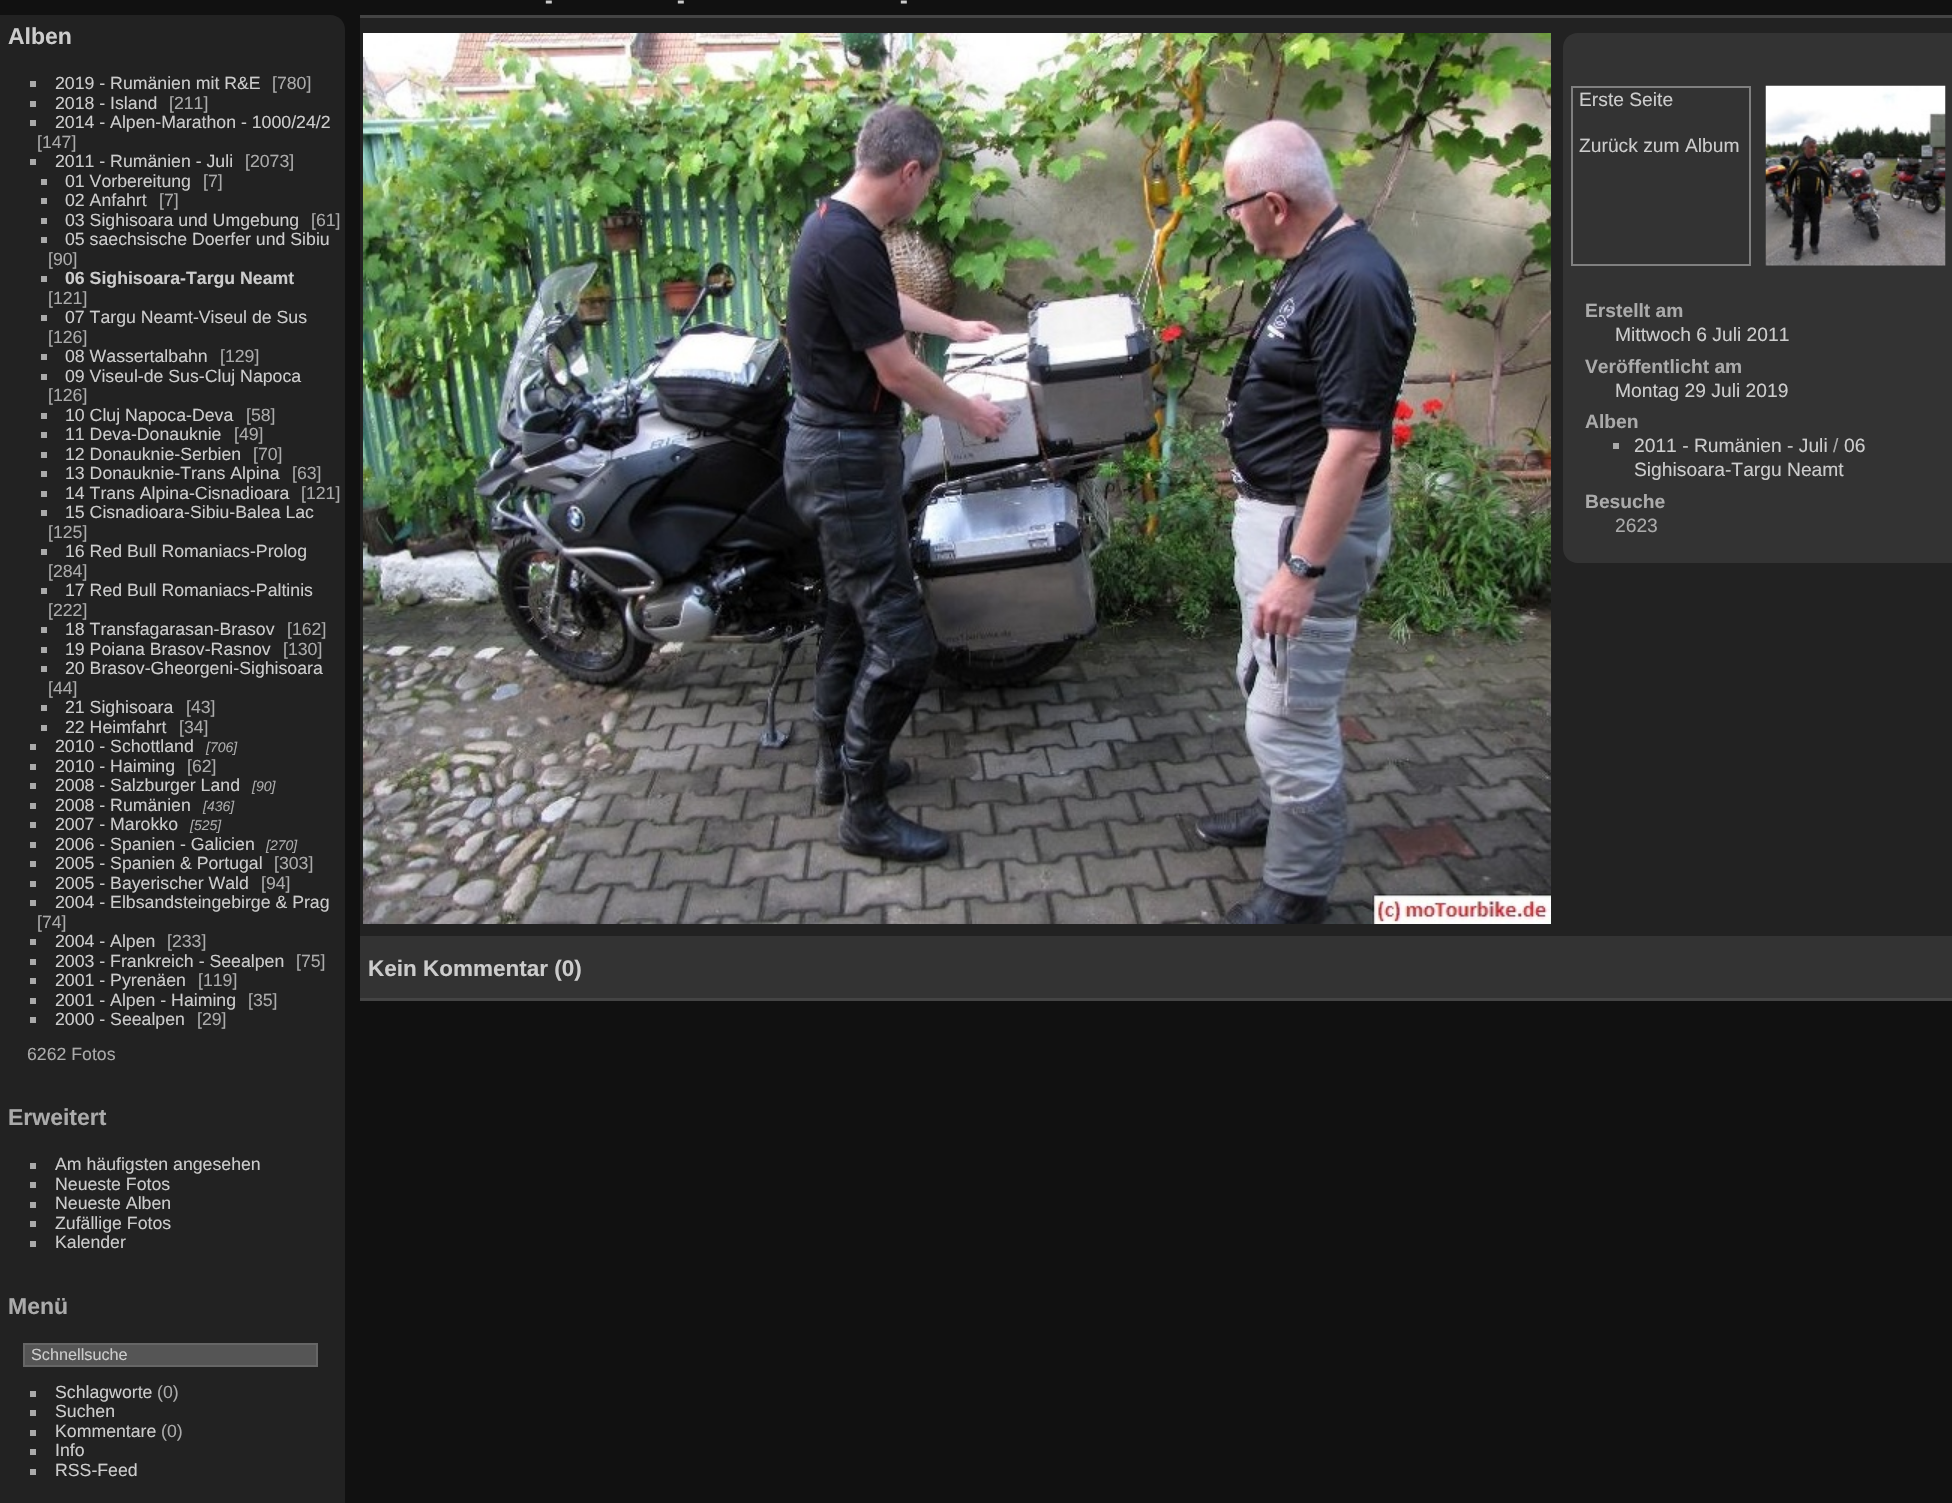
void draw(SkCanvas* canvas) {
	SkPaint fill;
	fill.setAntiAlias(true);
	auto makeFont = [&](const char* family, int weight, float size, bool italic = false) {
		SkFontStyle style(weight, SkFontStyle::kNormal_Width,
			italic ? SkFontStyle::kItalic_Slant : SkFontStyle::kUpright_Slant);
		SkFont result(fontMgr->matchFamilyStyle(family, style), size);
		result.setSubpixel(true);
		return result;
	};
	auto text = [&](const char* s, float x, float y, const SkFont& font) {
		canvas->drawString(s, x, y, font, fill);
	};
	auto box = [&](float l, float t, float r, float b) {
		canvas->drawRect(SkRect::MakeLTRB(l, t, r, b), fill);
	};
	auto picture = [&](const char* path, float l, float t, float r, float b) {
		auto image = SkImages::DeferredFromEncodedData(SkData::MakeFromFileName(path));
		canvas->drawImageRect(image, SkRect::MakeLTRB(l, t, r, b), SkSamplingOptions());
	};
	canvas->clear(0xFF111111);
	fill.setColor(0xFF222222);
	canvas->drawPath(SkPathBuilder().moveTo(0, 15).lineTo(330, 15).cubicTo(338.5f, 15, 345, 21.5f, 345, 30).lineTo(345, 1503).cubicTo(345, 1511.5f, 338.5f, 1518, 330, 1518).lineTo(0, 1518).close().detach(), fill);
	fill.setColor(0xFFAAAAAA);
	box(30, 81, 36, 87);
	box(30, 101, 36, 107);
	box(30, 120, 36, 126);
	box(30, 159, 36, 165);
	box(41, 179, 47, 185);
	box(41, 198, 47, 204);
	box(41, 218, 47, 224);
	box(41, 237, 47, 243);
	box(41, 276, 47, 282);
	box(41, 315, 47, 321);
	box(41, 354, 47, 360);
	box(41, 374, 47, 380);
	box(41, 413, 47, 419);
	box(41, 432, 47, 438);
	box(41, 452, 47, 458);
	box(41, 471, 47, 477);
	box(41, 491, 47, 497);
	box(41, 510, 47, 516);
	box(41, 549, 47, 555);
	box(41, 588, 47, 594);
	box(41, 627, 47, 633);
	box(41, 647, 47, 653);
	box(41, 666, 47, 672);
	box(41, 705, 47, 711);
	box(41, 725, 47, 731);
	box(30, 744, 36, 750);
	box(30, 764, 36, 770);
	box(30, 783, 36, 789);
	box(30, 803, 36, 809);
	box(30, 822, 36, 828);
	box(30, 842, 36, 848);
	box(30, 861, 36, 867);
	box(30, 881, 36, 887);
	box(30, 900, 36, 906);
	box(30, 939, 36, 945);
	box(30, 959, 36, 965);
	box(30, 978, 36, 984);
	box(30, 998, 36, 1004);
	box(30, 1017, 36, 1023);
	box(30, 1163, 36, 1169);
	box(30, 1182, 36, 1188);
	box(30, 1202, 36, 1208);
	box(30, 1221, 36, 1227);
	box(30, 1241, 36, 1247);
	fill.setColor(0xFF555555);
	canvas->drawRect(SkRect::MakeLTRB(24, 1344, 317, 1366), fill);
	fill.setStyle(SkPaint::kStroke_Style);
	fill.setStrokeWidth(2);
	fill.setColor(0xFF666666);
	canvas->drawRect(SkRect::MakeLTRB(24, 1344, 317, 1366), fill);
	fill.setStyle(SkPaint::kFill_Style);
	fill.setColor(0xFFAAAAAA);
	box(30, 1391, 36, 1397);
	box(30, 1410, 36, 1416);
	box(30, 1430, 36, 1436);
	box(30, 1449, 36, 1455);
	box(30, 1469, 36, 1475);
	fill.setColor(0xFF222222);
	box(360, 18, 1952, 936);
	fill.setColor(0xFF444444);
	box(360, 998, 1952, 1001);
	box(360, 15, 1952, 18);
	picture("image0.png", 363, 33, 1551, 924);
	fill.setColor(0xFF333333);
	canvas->drawPath(SkPathBuilder().moveTo(1578, 33).lineTo(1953, 33).lineTo(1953, 563).lineTo(1578, 563).cubicTo(1569.5f, 563, 1563, 556.5f, 1563, 548).lineTo(1563, 48).cubicTo(1563, 39.5f, 1569.5f, 33, 1578, 33).close().detach(), fill);
	fill.setStyle(SkPaint::kStroke_Style);
	fill.setColor(0xFF808080);
	canvas->drawRect(SkRect::MakeLTRB(1572, 87, 1750, 265), fill);
	picture("image1.png", 1765, 85, 1946, 266);
	fill.setStyle(SkPaint::kFill_Style);
	fill.setColor(0xFFAAAAAA);
	box(1613, 443, 1619, 449);
	fill.setColor(0xFF333333);
	box(360, 936, 1952, 998);
	auto font1 = makeFont("Liberation Sans", 700, 23);
	fill.setColor(0xFFCCCCCC);
	text("Alben", 8, 44, font1);
	auto font2 = makeFont("Liberation Sans", 400, 17.7f);
	text("2019 - Rumänien mit R&E", 55, 89, font2);
	fill.setColor(0xFFAAAAAA);
	text("[780]", 272, 89, font2);
	fill.setColor(0xFFCCCCCC);
	text("2018 - Island", 55, 109, font2);
	fill.setColor(0xFFAAAAAA);
	text("[211]", 169, 109, font2);
	fill.setColor(0xFFCCCCCC);
	text("2014 - Alpen-Marathon - 1000/24/2", 55, 128, font2);
	fill.setColor(0xFFAAAAAA);
	text("[147]", 37, 148, font2);
	fill.setColor(0xFFCCCCCC);
	text("2011 - Rumänien - Juli", 55, 167, font2);
	fill.setColor(0xFFAAAAAA);
	text("[2073]", 245, 167, font2);
	fill.setColor(0xFFCCCCCC);
	text("01 Vorbereitung", 65, 187, font2);
	fill.setColor(0xFFAAAAAA);
	text("[7]", 203, 187, font2);
	fill.setColor(0xFFCCCCCC);
	text("02 Anfahrt", 65, 206, font2);
	fill.setColor(0xFFAAAAAA);
	text("[7]", 159, 206, font2);
	fill.setColor(0xFFCCCCCC);
	text("03 Sighisoara und Umgebung", 65, 226, font2);
	fill.setColor(0xFFAAAAAA);
	text("[61]", 311, 226, font2);
	fill.setColor(0xFFCCCCCC);
	text("05 saechsische Doerfer und Sibiu", 65, 245, font2);
	fill.setColor(0xFFAAAAAA);
	text("[90]", 48, 265, font2);
	auto font3 = makeFont("Liberation Sans", 700, 17.7f);
	fill.setColor(0xFFCCCCCC);
	text("06 Sighisoara-Targu Neamt", 65, 284, font3);
	fill.setColor(0xFFAAAAAA);
	text("[121]", 48, 304, font2);
	fill.setColor(0xFFCCCCCC);
	text("07 Targu Neamt-Viseul de Sus", 65, 323, font2);
	fill.setColor(0xFFAAAAAA);
	text("[126]", 48, 343, font2);
	fill.setColor(0xFFCCCCCC);
	text("08 Wassertalbahn", 65, 362, font2);
	fill.setColor(0xFFAAAAAA);
	text("[129]", 220, 362, font2);
	fill.setColor(0xFFCCCCCC);
	text("09 Viseul-de Sus-Cluj Napoca", 65, 382, font2);
	fill.setColor(0xFFAAAAAA);
	text("[126]", 48, 401, font2);
	fill.setColor(0xFFCCCCCC);
	text("10 Cluj Napoca-Deva", 65, 421, font2);
	fill.setColor(0xFFAAAAAA);
	text("[58]", 246, 421, font2);
	fill.setColor(0xFFCCCCCC);
	text("11 Deva-Donauknie", 65, 440, font2);
	fill.setColor(0xFFAAAAAA);
	text("[49]", 234, 440, font2);
	fill.setColor(0xFFCCCCCC);
	text("12 Donauknie-Serbien", 65, 460, font2);
	fill.setColor(0xFFAAAAAA);
	text("[70]", 253, 460, font2);
	fill.setColor(0xFFCCCCCC);
	text("13 Donauknie-Trans Alpina", 65, 479, font2);
	fill.setColor(0xFFAAAAAA);
	text("[63]", 292, 479, font2);
	fill.setColor(0xFFCCCCCC);
	text("14 Trans Alpina-Cisnadioara", 65, 499, font2);
	fill.setColor(0xFFAAAAAA);
	text("[121]", 301, 499, font2);
	fill.setColor(0xFFCCCCCC);
	text("15 Cisnadioara-Sibiu-Balea Lac", 65, 518, font2);
	fill.setColor(0xFFAAAAAA);
	text("[125]", 48, 538, font2);
	fill.setColor(0xFFCCCCCC);
	text("16 Red Bull Romaniacs-Prolog", 65, 557, font2);
	fill.setColor(0xFFAAAAAA);
	text("[284]", 48, 577, font2);
	fill.setColor(0xFFCCCCCC);
	text("17 Red Bull Romaniacs-Paltinis", 65, 596, font2);
	fill.setColor(0xFFAAAAAA);
	text("[222]", 48, 616, font2);
	fill.setColor(0xFFCCCCCC);
	text("18 Transfagarasan-Brasov", 65, 635, font2);
	fill.setColor(0xFFAAAAAA);
	text("[162]", 287, 635, font2);
	fill.setColor(0xFFCCCCCC);
	text("19 Poiana Brasov-Rasnov", 65, 655, font2);
	fill.setColor(0xFFAAAAAA);
	text("[130]", 283, 655, font2);
	fill.setColor(0xFFCCCCCC);
	text("20 Brasov-Gheorgeni-Sighisoara", 65, 674, font2);
	fill.setColor(0xFFAAAAAA);
	text("[44]", 48, 694, font2);
	fill.setColor(0xFFCCCCCC);
	text("21 Sighisoara", 65, 713, font2);
	fill.setColor(0xFFAAAAAA);
	text("[43]", 186, 713, font2);
	fill.setColor(0xFFCCCCCC);
	text("22 Heimfahrt", 65, 733, font2);
	fill.setColor(0xFFAAAAAA);
	text("[34]", 179, 733, font2);
	fill.setColor(0xFFCCCCCC);
	text("2010 - Schottland", 55, 752, font2);
	auto font4 = makeFont("Liberation Sans", 400, 14, true);
	fill.setColor(0xFFAAAAAA);
	text("[706]", 206, 752, font4);
	fill.setColor(0xFFCCCCCC);
	text("2010 - Haiming", 55, 772, font2);
	fill.setColor(0xFFAAAAAA);
	text("[62]", 187, 772, font2);
	fill.setColor(0xFFCCCCCC);
	text("2008 - Salzburger Land", 55, 791, font2);
	fill.setColor(0xFFAAAAAA);
	text("[90]", 252, 791, font4);
	fill.setColor(0xFFCCCCCC);
	text("2008 - Rumänien", 55, 811, font2);
	fill.setColor(0xFFAAAAAA);
	text("[436]", 203, 811, font4);
	fill.setColor(0xFFCCCCCC);
	text("2007 - Marokko", 55, 830, font2);
	fill.setColor(0xFFAAAAAA);
	text("[525]", 190, 830, font4);
	fill.setColor(0xFFCCCCCC);
	text("2006 - Spanien - Galicien", 55, 850, font2);
	fill.setColor(0xFFAAAAAA);
	text("[270]", 266, 850, font4);
	fill.setColor(0xFFCCCCCC);
	text("2005 - Spanien & Portugal", 55, 869, font2);
	fill.setColor(0xFFAAAAAA);
	text("[303]", 274, 869, font2);
	fill.setColor(0xFFCCCCCC);
	text("2005 - Bayerischer Wald", 55, 889, font2);
	fill.setColor(0xFFAAAAAA);
	text("[94]", 261, 889, font2);
	fill.setColor(0xFFCCCCCC);
	text("2004 - Elbsandsteingebirge & Prag", 55, 908, font2);
	fill.setColor(0xFFAAAAAA);
	text("[74]", 37, 928, font2);
	fill.setColor(0xFFCCCCCC);
	text("2004 - Alpen", 55, 947, font2);
	fill.setColor(0xFFAAAAAA);
	text("[233]", 167, 947, font2);
	fill.setColor(0xFFCCCCCC);
	text("2003 - Frankreich - Seealpen", 55, 967, font2);
	fill.setColor(0xFFAAAAAA);
	text("[75]", 296, 967, font2);
	fill.setColor(0xFFCCCCCC);
	text("2001 - Pyrenäen", 55, 986, font2);
	fill.setColor(0xFFAAAAAA);
	text("[119]", 198, 986, font2);
	fill.setColor(0xFFCCCCCC);
	text("2001 - Alpen - Haiming", 55, 1006, font2);
	fill.setColor(0xFFAAAAAA);
	text("[35]", 248, 1006, font2);
	fill.setColor(0xFFCCCCCC);
	text("2000 - Seealpen", 55, 1025, font2);
	fill.setColor(0xFFAAAAAA);
	text("[29]", 197, 1025, font2);
	text("6262 Fotos", 27, 1060, font2);
	text("Erweitert", 8, 1125, font1);
	fill.setColor(0xFFCCCCCC);
	text("Am häufigsten angesehen", 55, 1170, font2);
	text("Neueste Fotos", 55, 1190, font2);
	text("Neueste Alben", 55, 1209, font2);
	text("Zufällige Fotos", 55, 1229, font2);
	text("Kalender", 55, 1248, font2);
	fill.setColor(0xFFAAAAAA);
	text("Menü", 8, 1314, font1);
	auto font5 = makeFont("Liberation Sans", 400, 16.25f);
	fill.setColor(0xFFCCCCCC);
	text("Schnellsuche", 31, 1360, font5);
	text("Schlagworte", 55, 1398, font2);
	fill.setColor(0xFFAAAAAA);
	text("(0)", 157, 1398, font2);
	fill.setColor(0xFFCCCCCC);
	text("Suchen", 55, 1417, font2);
	text("Kommentare", 55, 1437, font2);
	fill.setColor(0xFFAAAAAA);
	text("(0)", 161, 1437, font2);
	fill.setColor(0xFFCCCCCC);
	text("Info", 55, 1456, font2);
	text("RSS-Feed", 55, 1476, font2);
	text("-", 545, 8, font1);
	text("-", 677, 8, font1);
	text("-", 900, 8, font1);
	auto font6 = makeFont("Liberation Sans", 400, 19.25f);
	text("Erste Seite", 1579, 106, font6);
	text("Zurück zum Album", 1579, 152, font6);
	auto font7 = makeFont("Liberation Sans", 700, 19.25f);
	fill.setColor(0xFFAAAAAA);
	text("Erstellt am", 1585, 317, font7);
	fill.setColor(0xFFCCCCCC);
	text("Mittwoch 6 Juli 2011", 1615, 341, font6);
	fill.setColor(0xFFAAAAAA);
	text("Veröffentlicht am", 1585, 373, font7);
	fill.setColor(0xFFCCCCCC);
	text("Montag 29 Juli 2019", 1615, 397, font6);
	fill.setColor(0xFFAAAAAA);
	text("Alben", 1585, 428, font7);
	fill.setColor(0xFFCCCCCC);
	text("2011 - Rumänien - Juli", 1634, 452, font6);
	fill.setColor(0xFFAAAAAA);
	text("/", 1833, 452, font6);
	fill.setColor(0xFFCCCCCC);
	text("06", 1844, 452, font6);
	text("Sighisoara-Targu Neamt", 1634, 476, font6);
	fill.setColor(0xFFAAAAAA);
	text("Besuche", 1585, 508, font7);
	text("2623", 1615, 532, font6);
	auto font8 = makeFont("Liberation Sans", 700, 22.5f);
	fill.setColor(0xFFCCCCCC);
	text("Kein Kommentar (0)", 368, 976, font8);
}
